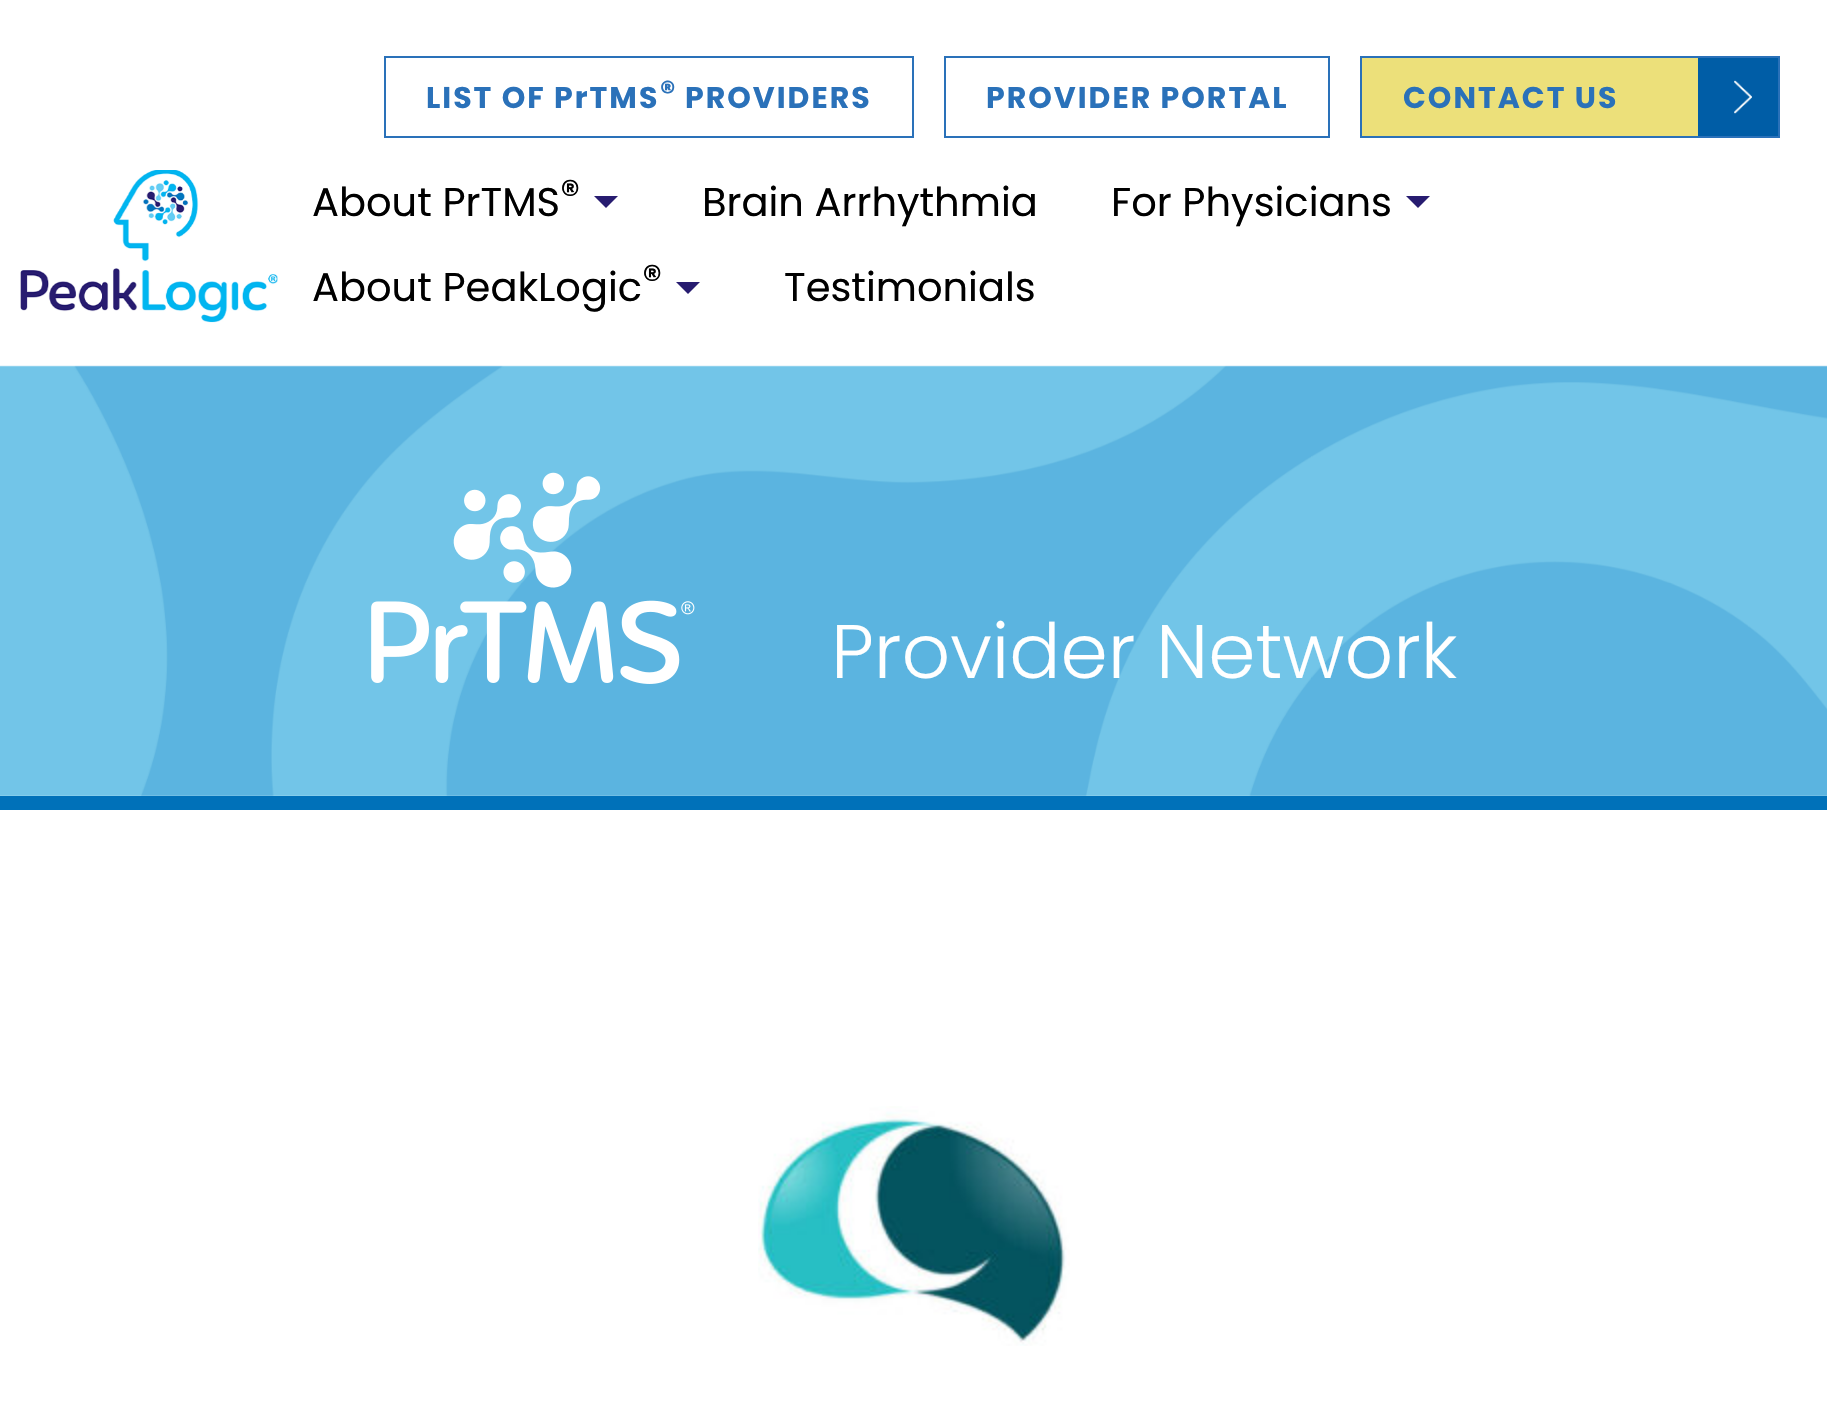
void draw(SkCanvas* canvas) {
	SkPaint fill;
	fill.setAntiAlias(true);
	auto makeFont = [&](const char* family, int weight, float size, bool italic = false) {
		SkFontStyle style(weight, SkFontStyle::kNormal_Width,
			italic ? SkFontStyle::kItalic_Slant : SkFontStyle::kUpright_Slant);
		SkFont result(fontMgr->matchFamilyStyle(family, style), size);
		result.setSubpixel(true);
		return result;
	};
	auto text = [&](const char* s, float x, float y, const SkFont& font) {
		canvas->drawString(s, x, y, font, fill);
	};
	auto spacedText = [&](const char* s, float x, float y, const SkFont& font, const SkPaint& ink, float letter, float word) {
		std::vector<SkGlyphID> glyphs(font.countText(s, strlen(s), SkTextEncoding::kUTF8));
		std::vector<float> xs(glyphs.size());
		font.textToGlyphs(s, strlen(s), SkTextEncoding::kUTF8, glyphs);
		font.getXPos(glyphs, xs, x);
		float extra = 0;
		for (size_t i = 0; i < glyphs.size(); i++) {
			xs[i] += extra;
			extra += letter + word * (glyphs[i] == font.unicharToGlyph(' '));
		}
		canvas->drawTextBlob(SkTextBlob::MakeFromPosHGlyphs(glyphs, xs, y, font), 0, 0, ink);
	};
	auto box = [&](float l, float t, float r, float b) {
		canvas->drawRect(SkRect::MakeLTRB(l, t, r, b), fill);
	};
	auto picture = [&](const char* path, float l, float t, float r, float b) {
		auto image = SkImages::DeferredFromEncodedData(SkData::MakeFromFileName(path));
		canvas->drawImageRect(image, SkRect::MakeLTRB(l, t, r, b), SkSamplingOptions());
	};
	canvas->clear(0xFFFFFFFF);
	fill.setStyle(SkPaint::kStroke_Style);
	fill.setStrokeWidth(2);
	fill.setColor(0xFF2A71B9);
	canvas->drawRect(SkRect::MakeLTRB(385, 57, 913, 137), fill);
	canvas->drawRect(SkRect::MakeLTRB(945, 57, 1329, 137), fill);
	fill.setStyle(SkPaint::kFill_Style);
	fill.setColor(0xFFECE07A);
	box(1362, 58, 1698, 136);
	picture("image0.png", 1698, 58, 1778, 136);
	fill.setStyle(SkPaint::kStroke_Style);
	fill.setColor(0xFF2A71B9);
	canvas->drawRect(SkRect::MakeLTRB(1361, 57, 1779, 137), fill);
	picture("image1.png", 20, 170, 278, 323);
	fill.setStyle(SkPaint::kFill_Style);
	fill.setColor(0xFF271C70);
	canvas->drawPath(SkPathBuilder().moveTo(594, 196).lineTo(618, 196).lineTo(606, 208).close().detach(), fill);
	canvas->drawPath(SkPathBuilder().moveTo(1406, 196).lineTo(1430, 196).lineTo(1418, 208).close().detach(), fill);
	canvas->drawPath(SkPathBuilder().moveTo(676, 282).lineTo(700, 282).lineTo(688, 294).close().detach(), fill);
	picture("image2.png", 0, 365, 1827, 796);
	fill.setColor(0xFF0071B9);
	box(0, 796, 1827, 810);
	picture("image3.png", 371, 472, 695, 684);
	picture("image4.png", 758, 1106, 1070, 1346);
	auto font1 = makeFont("Poppins", 700, 30);
	fill.setColor(0xFF2A71B9);
	spacedText("LIST OF PrTMS", 426, 108, font1, fill, 2, 0);
	spacedText("®", 660, 102, font1, fill, 2, 0);
	spacedText("PROVIDERS", 685, 108, font1, fill, 2, 0);
	spacedText("PROVIDER PORTAL", 986, 108, font1, fill, 2, 0);
	spacedText("CONTACT US", 1403, 108, font1, fill, 2, 0);
	auto font2 = makeFont("Poppins", 400, 40);
	fill.setColor(0xFF000000);
	text("About PrTMS", 312, 216, font2);
	text("®", 560, 208, font2);
	text("Brain Arrhythmia", 702, 216, font2);
	text("For Physicians", 1111, 216, font2);
	text("About PeakLogic", 312, 301, font2);
	text("®", 642, 293, font2);
	text("Testimonials", 784, 301, font2);
	auto font3 = makeFont("Poppins", 300, 76);
	fill.setColor(0xFFFFFFFF);
	text("Provider Network", 831, 678, font3);
}
